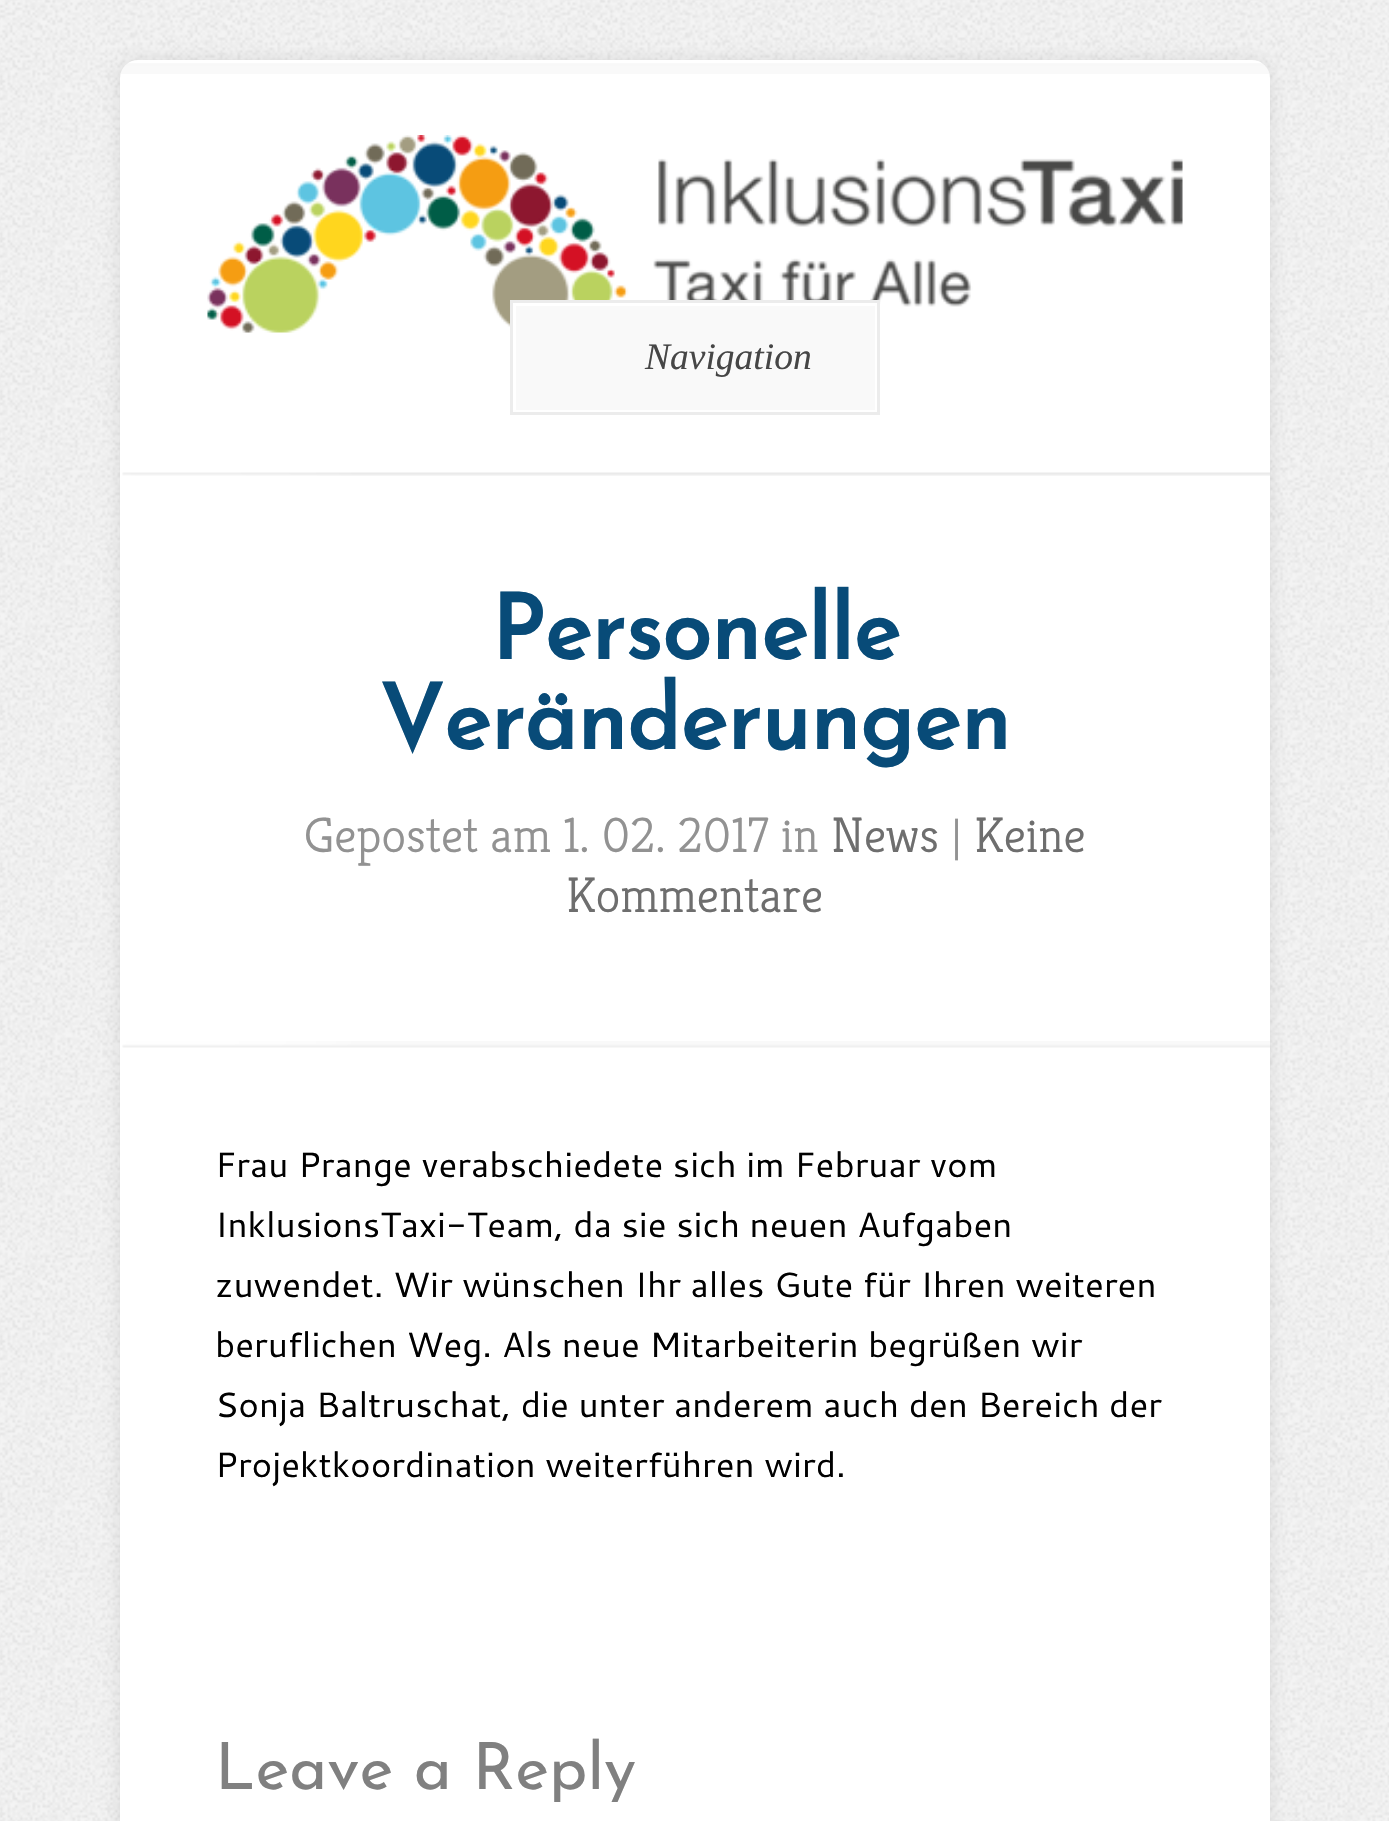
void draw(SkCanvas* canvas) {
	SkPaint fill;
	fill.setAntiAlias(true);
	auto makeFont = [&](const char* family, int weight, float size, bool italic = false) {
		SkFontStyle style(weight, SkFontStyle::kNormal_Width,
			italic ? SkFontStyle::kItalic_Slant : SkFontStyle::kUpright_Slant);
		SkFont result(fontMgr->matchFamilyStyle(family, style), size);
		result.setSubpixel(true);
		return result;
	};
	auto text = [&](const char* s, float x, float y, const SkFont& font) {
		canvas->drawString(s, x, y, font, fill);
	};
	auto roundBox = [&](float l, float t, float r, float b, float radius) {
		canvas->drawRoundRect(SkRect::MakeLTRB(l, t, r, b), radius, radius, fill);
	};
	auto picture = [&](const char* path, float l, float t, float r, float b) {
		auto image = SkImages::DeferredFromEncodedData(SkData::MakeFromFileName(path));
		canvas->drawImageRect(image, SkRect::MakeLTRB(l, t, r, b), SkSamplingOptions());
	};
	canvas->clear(0xFFF4F4F4);
	picture("image0.png", 0, 0, 1389, 1821);
	fill.setColor(0x1A000000);
	fill.setMaskFilter(SkMaskFilter::MakeBlur(kNormal_SkBlurStyle, 7.5f));
	canvas->drawRoundRect(SkRect::MakeLTRB(120, 60, 1270, 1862), 18, 18, fill);
	fill.setMaskFilter(nullptr);
	fill.setColor(0xFFFFFFFF);
	roundBox(120, 60, 1270, 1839, 18);
	picture("image1.png", 121, 63, 1269, 74);
	picture("image2.png", 207, 135, 1183, 333);
	fill.setColor(0xFFF9F9F9);
	canvas->drawRect(SkRect::MakeLTRB(514.5f, 304.5f, 876.5f, 411.5f), fill);
	fill.setStyle(SkPaint::kStroke_Style);
	fill.setStrokeWidth(3);
	fill.setColor(0xFFFFFFFF);
	canvas->drawRect(SkRect::MakeLTRB(514.5f, 304.5f, 876.5f, 411.5f), fill);
	fill.setColor(0xFFECECEC);
	canvas->drawRect(SkRect::MakeLTRB(511.5f, 301.5f, 878.5f, 413.5f), fill);
	picture("image3.png", 122, 472, 1270, 476);
	picture("image4.png", 122, 1041, 1270, 1048);
	auto font1 = makeFont("Liberation Serif", 400, 37.5f, true);
	fill.setStyle(SkPaint::kFill_Style);
	fill.setColor(0xFF464646);
	text("Navigation", 645, 369, font1);
	auto font2 = makeFont("Josefin Sans", 700, 90);
	fill.setColor(0xFF084B78);
	text("Personelle", 491, 659, font2);
	text("Veränderungen", 379, 749, font2);
	auto font3 = makeFont("Kreon", 300, 50);
	fill.setColor(0xFF929292);
	text("Gepostet am 1. 02. 2017 in", 304, 852, font3);
	fill.setColor(0xFF6E6E6E);
	text("News", 831, 852, font3);
	fill.setColor(0xFF929292);
	text("|", 951, 852, font3);
	fill.setColor(0xFF6E6E6E);
	text("Keine", 974, 852, font3);
	text("Kommentare", 566, 912, font3);
	auto font4 = makeFont("Cantarell", 400, 35);
	fill.setColor(0xFF000000);
	text("Frau Prange verabschiedete sich im Februar vom", 215, 1177, font4);
	text("InklusionsTaxi-Team, da sie sich neuen Aufgaben", 215, 1237, font4);
	text("zuwendet. Wir wünschen Ihr alles Gute für Ihren weiteren", 215, 1297, font4);
	text("beruflichen Weg. Als neue Mitarbeiterin begrüßen wir", 215, 1357, font4);
	text("Sonja Baltruschat, die unter anderem auch den Bereich der", 215, 1417, font4);
	text("Projektkoordination weiterführen wird.", 215, 1477, font4);
	auto font5 = makeFont("Josefin Sans", 100, 65);
	fill.setColor(0xFF808080);
	text("Leave a Reply", 215, 1789, font5);
}
